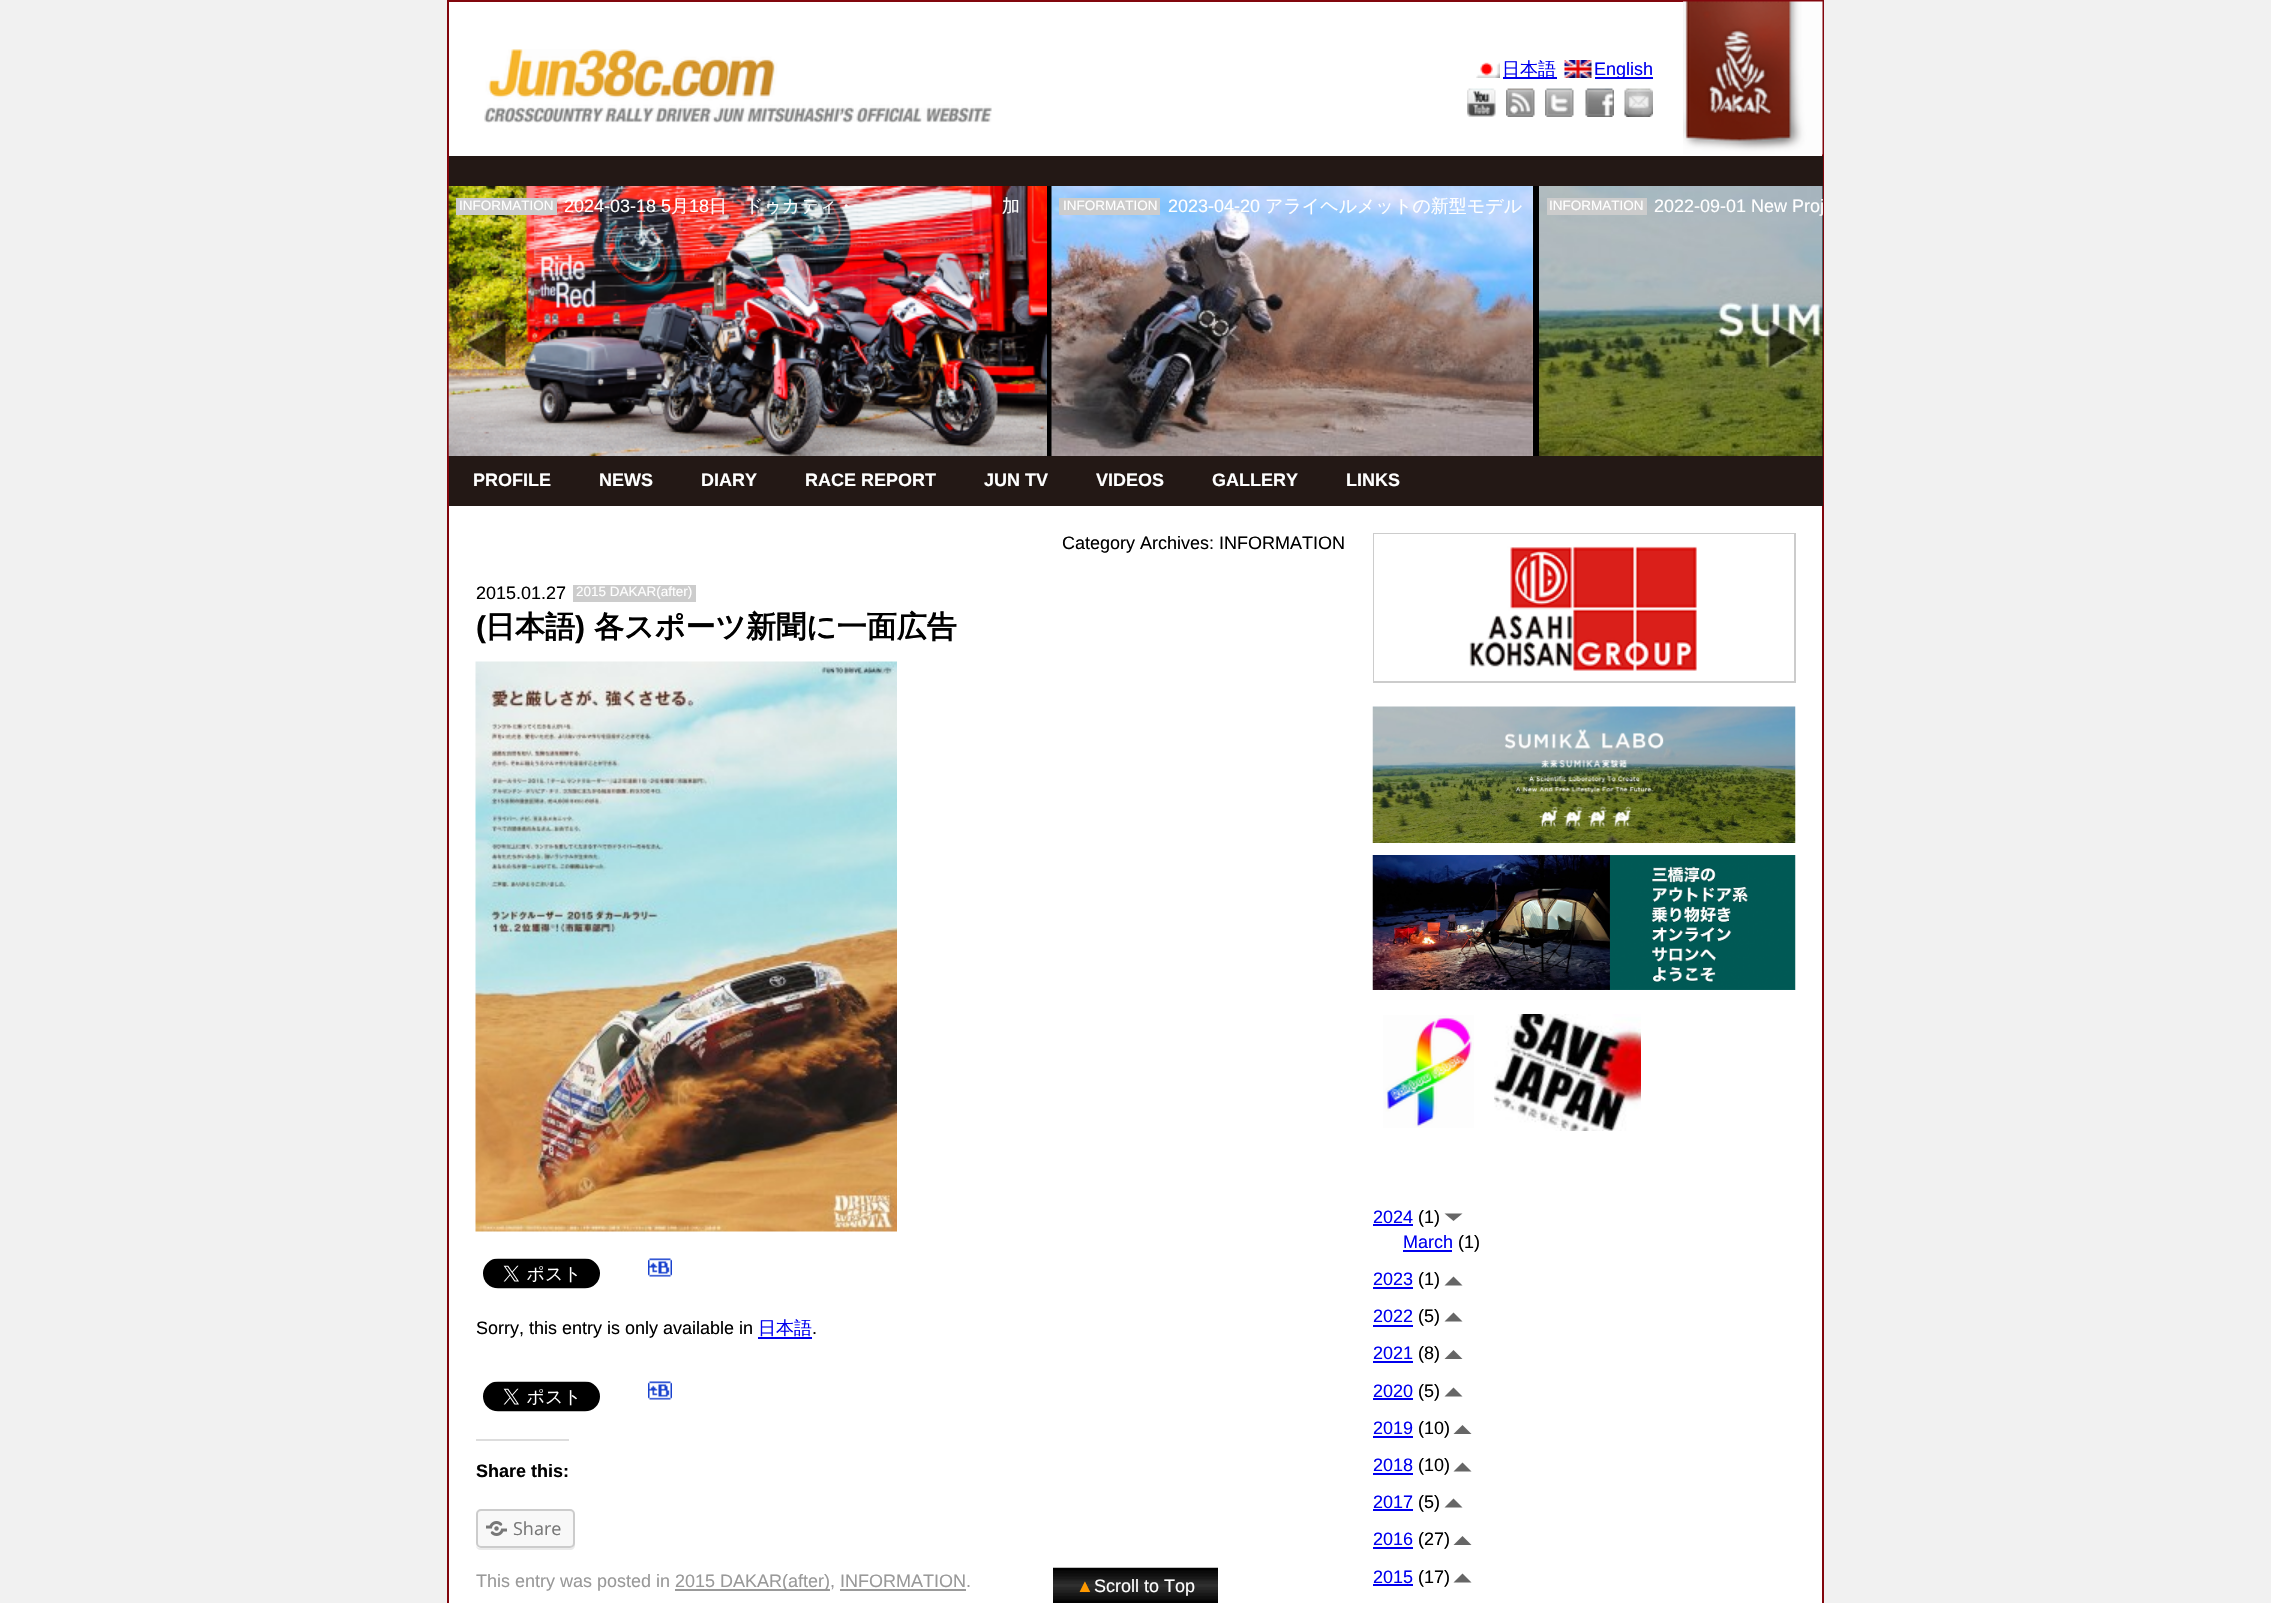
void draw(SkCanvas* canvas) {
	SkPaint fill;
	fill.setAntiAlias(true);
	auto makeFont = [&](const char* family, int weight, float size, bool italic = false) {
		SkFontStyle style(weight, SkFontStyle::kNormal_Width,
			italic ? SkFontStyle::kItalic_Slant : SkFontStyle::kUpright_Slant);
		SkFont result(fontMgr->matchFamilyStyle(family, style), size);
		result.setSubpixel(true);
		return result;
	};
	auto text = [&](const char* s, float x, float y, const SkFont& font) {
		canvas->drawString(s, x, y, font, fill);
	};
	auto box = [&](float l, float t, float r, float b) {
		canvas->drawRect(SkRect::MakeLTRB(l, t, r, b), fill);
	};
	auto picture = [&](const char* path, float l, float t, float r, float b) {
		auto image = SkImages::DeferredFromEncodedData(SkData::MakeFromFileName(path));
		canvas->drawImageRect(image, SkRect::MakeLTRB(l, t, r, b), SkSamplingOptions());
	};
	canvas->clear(0xFFF1F1F1);
	fill.setColor(0xFFFFFFFF);
	canvas->drawRect(SkRect::MakeLTRB(448, 1, 1823, 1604), fill);
	fill.setStyle(SkPaint::kStroke_Style);
	fill.setStrokeWidth(2);
	fill.setColor(0xFF82060D);
	canvas->drawRect(SkRect::MakeLTRB(448, 1, 1823, 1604), fill);
	picture("image0.png", 484, 49, 992, 123);
	picture("image1.png", 1476, 62, 1500, 78);
	fill.setStyle(SkPaint::kFill_Style);
	fill.setColor(0xFF0000EE);
	box(1503, 77, 1557, 79);
	picture("image2.png", 1564, 60, 1592, 78);
	box(1595, 77, 1653, 79);
	picture("image3.png", 1467, 88, 1496, 117);
	picture("image4.png", 1506, 88, 1535, 117);
	picture("image5.png", 1545, 88, 1574, 117);
	picture("image6.png", 1585, 88, 1614, 117);
	picture("image7.png", 1624, 88, 1653, 117);
	picture("image8.png", 1683, 1, 1823, 155);
	fill.setColor(0xFF231815);
	box(449, 156, 1823, 186);
	fill.setColor(0xFF000000);
	box(1047, 186, 1823, 456);
	picture("image9.png", 448, 186, 1047, 456);
	fill.setColor(0xFFCCCCCC);
	box(456, 198, 557, 215);
	picture("image10.png", 1051, 186, 1533, 456);
	box(1059, 198, 1160, 215);
	picture("image11.png", 1539, 186, 1823, 456);
	box(1547, 198, 1647, 215);
	picture("image12.png", 463, 321, 506, 368);
	picture("image13.png", 1765, 321, 1808, 368);
	fill.setColor(0xFF231815);
	box(449, 456, 1823, 506);
	fill.setColor(0xFFCCCCCC);
	box(573, 585, 696, 602);
	picture("image14.png", 475, 661, 897, 1232);
	picture("image15.png", 483, 1258, 600, 1289);
	picture("image16.png", 648, 1258, 672, 1277);
	fill.setColor(0xFF0000EE);
	box(758, 1337, 812, 1339);
	picture("image17.png", 483, 1381, 600, 1412);
	picture("image16.png", 648, 1381, 672, 1400);
	fill.setColor(0xFFDDDDDD);
	box(476, 1439, 569, 1441);
	fill.setColor(0xFFEBEBEB);
	canvas->drawPath(SkPathBuilder().moveTo(476, 1546).cubicTo(476, 1548, 478, 1550, 481, 1550).lineTo(570, 1550).cubicTo(573, 1550, 575, 1548, 575, 1545).lineTo(575, 1516).lineTo(574, 1514).lineTo(574, 1544).cubicTo(574, 1546, 572, 1548, 570, 1548).lineTo(480, 1548).cubicTo(478, 1548, 477, 1547, 476, 1546).close().detach(), fill);
	fill.setColor(0xFFF8F8F8);
	canvas->drawRoundRect(SkRect::MakeLTRB(477, 1510, 574, 1547), 4, 4, fill);
	fill.setStyle(SkPaint::kStroke_Style);
	fill.setColor(0xFFCCCCCC);
	canvas->drawRoundRect(SkRect::MakeLTRB(477, 1510, 574, 1547), 4, 4, fill);
	picture("image18.png", 486, 1521, 507, 1536);
	fill.setStyle(SkPaint::kFill_Style);
	fill.setColor(0xFF999999);
	box(675, 1589, 830, 1591);
	box(840, 1589, 966, 1591);
	fill.setStyle(SkPaint::kStroke_Style);
	fill.setColor(0xFFCCCCCC);
	canvas->drawRect(SkRect::MakeLTRB(1374, 534, 1795, 682), fill);
	fill.setStyle(SkPaint::kFill_Style);
	fill.setColor(0xFFFFFFFF);
	box(1374, 534, 1794, 681);
	picture("image19.png", 1469, 546, 1697, 671);
	picture("image20.png", 1372, 706, 1796, 843);
	picture("image21.png", 1372, 855, 1796, 990);
	picture("image22.png", 1383, 1015, 1474, 1128);
	picture("image23.png", 1494, 1014, 1641, 1131);
	fill.setColor(0xFF0000EE);
	box(1373, 1224, 1413, 1226);
	fill.setColor(0xFF666666);
	canvas->drawPath(SkPathBuilder().moveTo(1444.5f, 1213.5f).lineTo(1462.5f, 1213.5f).lineTo(1453.5f, 1221).close().detach(), fill);
	fill.setColor(0xFF0000EE);
	box(1403, 1250, 1452, 1252);
	box(1373, 1287, 1413, 1289);
	fill.setColor(0xFF666666);
	canvas->drawPath(SkPathBuilder().moveTo(1462.5f, 1285.5f).lineTo(1444.5f, 1285.5f).lineTo(1453.5f, 1276.5f).close().detach(), fill);
	fill.setColor(0xFF0000EE);
	box(1373, 1325, 1413, 1327);
	fill.setColor(0xFF666666);
	canvas->drawPath(SkPathBuilder().moveTo(1462.5f, 1321.5f).lineTo(1444.5f, 1321.5f).lineTo(1453.5f, 1312.5f).close().detach(), fill);
	fill.setColor(0xFF0000EE);
	box(1373, 1361, 1413, 1363);
	fill.setColor(0xFF666666);
	canvas->drawPath(SkPathBuilder().moveTo(1462.5f, 1359).lineTo(1444.5f, 1359).lineTo(1453.5f, 1350).close().detach(), fill);
	fill.setColor(0xFF0000EE);
	box(1373, 1398, 1413, 1400);
	fill.setColor(0xFF666666);
	canvas->drawPath(SkPathBuilder().moveTo(1462.5f, 1396.5f).lineTo(1444.5f, 1396.5f).lineTo(1453.5f, 1387.5f).close().detach(), fill);
	fill.setColor(0xFF0000EE);
	box(1373, 1436, 1413, 1438);
	fill.setColor(0xFF666666);
	canvas->drawPath(SkPathBuilder().moveTo(1471.5f, 1434).lineTo(1453.5f, 1434).lineTo(1462.5f, 1425).close().detach(), fill);
	fill.setColor(0xFF0000EE);
	box(1373, 1473, 1413, 1475);
	fill.setColor(0xFF666666);
	canvas->drawPath(SkPathBuilder().moveTo(1471.5f, 1471.5f).lineTo(1453.5f, 1471.5f).lineTo(1462.5f, 1462.5f).close().detach(), fill);
	fill.setColor(0xFF0000EE);
	box(1373, 1509, 1413, 1511);
	fill.setColor(0xFF666666);
	canvas->drawPath(SkPathBuilder().moveTo(1462.5f, 1507.5f).lineTo(1444.5f, 1507.5f).lineTo(1453.5f, 1498.5f).close().detach(), fill);
	fill.setColor(0xFF0000EE);
	box(1373, 1547, 1413, 1549);
	fill.setColor(0xFF666666);
	canvas->drawPath(SkPathBuilder().moveTo(1471.5f, 1545).lineTo(1453.5f, 1545).lineTo(1462.5f, 1536).close().detach(), fill);
	fill.setColor(0xFF0000EE);
	box(1373, 1584, 1413, 1586);
	fill.setColor(0xFF666666);
	canvas->drawPath(SkPathBuilder().moveTo(1471.5f, 1582.5f).lineTo(1453.5f, 1582.5f).lineTo(1462.5f, 1573.5f).close().detach(), fill);
	picture("image24.png", 1053, 1567, 1218, 1603);
	auto font1 = makeFont("WenQuanYi Zen Hei", 500, 18);
	fill.setColor(0xFF0000EE);
	text("日本語", 1502, 75, font1);
	auto font2 = makeFont("Liberation Sans", 400, 18);
	text("English", 1594, 75, font2);
	auto font3 = makeFont("Liberation Sans", 400, 13.5f);
	fill.setColor(0xFFFFFFFF);
	text("INFORMATION", 459, 210, font3);
	text("2024-03-18 5", 564, 212, font2);
	text("月", 671, 212, font1);
	text("18", 689, 212, font2);
	text("日　ドゥカティ・", 709, 212, font1);
	text("加", 1002, 212, font1);
	text("INFORMATION", 1063, 210, font3);
	text("2023-04-20", 1168, 212, font2);
	text("アライヘルメットの新型モデル", 1265, 212, font1);
	text("INFORMATION", 1549, 210, font3);
	text("2022-09-01 New Proj", 1654, 212, font2);
	auto font4 = makeFont("Liberation Sans", 700, 18);
	text("PROFILE", 473, 486, font4);
	text("NEWS", 599, 486, font4);
	text("DIARY", 701, 486, font4);
	text("RACE REPORT", 805, 486, font4);
	text("JUN TV", 984, 486, font4);
	text("VIDEOS", 1096, 486, font4);
	text("GALLERY", 1212, 486, font4);
	text("LINKS", 1346, 486, font4);
	fill.setColor(0xFF000000);
	text("Category Archives: INFORMATION", 1062, 549, font2);
	text("2015.01.27", 476, 599, font2);
	fill.setColor(0xFFFFFFFF);
	text("2015 DAKAR(after)", 576, 596, font3);
	auto font5 = makeFont("Liberation Sans", 700, 30);
	fill.setColor(0xFF000000);
	text("(", 476, 637, font5);
	auto font6 = makeFont("WenQuanYi Zen Hei", 700, 30);
	text("日本語", 485, 637, font6);
	text(")", 575, 637, font5);
	text("各スポーツ新聞に一面広告", 594, 637, font6);
	text("Sorry, this entry is only available in", 476, 1334, font2);
	fill.setColor(0xFF0000EE);
	text("日本語", 758, 1334, font1);
	fill.setColor(0xFF000000);
	text(".", 812, 1334, font2);
	text("Share this:", 476, 1477, font4);
	auto font7 = makeFont("Open Sans", 400, 18);
	fill.setColor(0xFF777777);
	text("Share", 513, 1535, font7);
	fill.setColor(0xFF999999);
	text("This entry was posted in", 476, 1587, font2);
	text("2015 DAKAR(after), INFORMATION.", 675, 1587, font2);
	fill.setColor(0xFF0000EE);
	text("2024", 1373, 1223, font2);
	fill.setColor(0xFF000000);
	text("(1)", 1418, 1223, font2);
	fill.setColor(0xFF0000EE);
	text("March", 1403, 1248, font2);
	fill.setColor(0xFF000000);
	text("(1)", 1458, 1248, font2);
	fill.setColor(0xFF0000EE);
	text("2023", 1373, 1285, font2);
	fill.setColor(0xFF000000);
	text("(1)", 1418, 1285, font2);
	fill.setColor(0xFF0000EE);
	text("2022", 1373, 1322, font2);
	fill.setColor(0xFF000000);
	text("(5)", 1418, 1322, font2);
	fill.setColor(0xFF0000EE);
	text("2021", 1373, 1359, font2);
	fill.setColor(0xFF000000);
	text("(8)", 1418, 1359, font2);
	fill.setColor(0xFF0000EE);
	text("2020", 1373, 1397, font2);
	fill.setColor(0xFF000000);
	text("(5)", 1418, 1397, font2);
	fill.setColor(0xFF0000EE);
	text("2019", 1373, 1434, font2);
	fill.setColor(0xFF000000);
	text("(10)", 1418, 1434, font2);
	fill.setColor(0xFF0000EE);
	text("2018", 1373, 1471, font2);
	fill.setColor(0xFF000000);
	text("(10)", 1418, 1471, font2);
	fill.setColor(0xFF0000EE);
	text("2017", 1373, 1508, font2);
	fill.setColor(0xFF000000);
	text("(5)", 1418, 1508, font2);
	fill.setColor(0xFF0000EE);
	text("2016", 1373, 1545, font2);
	fill.setColor(0xFF000000);
	text("(27)", 1418, 1545, font2);
	fill.setColor(0xFF0000EE);
	text("2015", 1373, 1583, font2);
	fill.setColor(0xFF000000);
	text("(17)", 1418, 1583, font2);
	fill.setColor(0xFFFF9900);
	text("▲", 1076, 1592, font2);
	fill.setColor(0xFFFFFFFF);
	text("Scroll to Top", 1094, 1592, font2);
}
